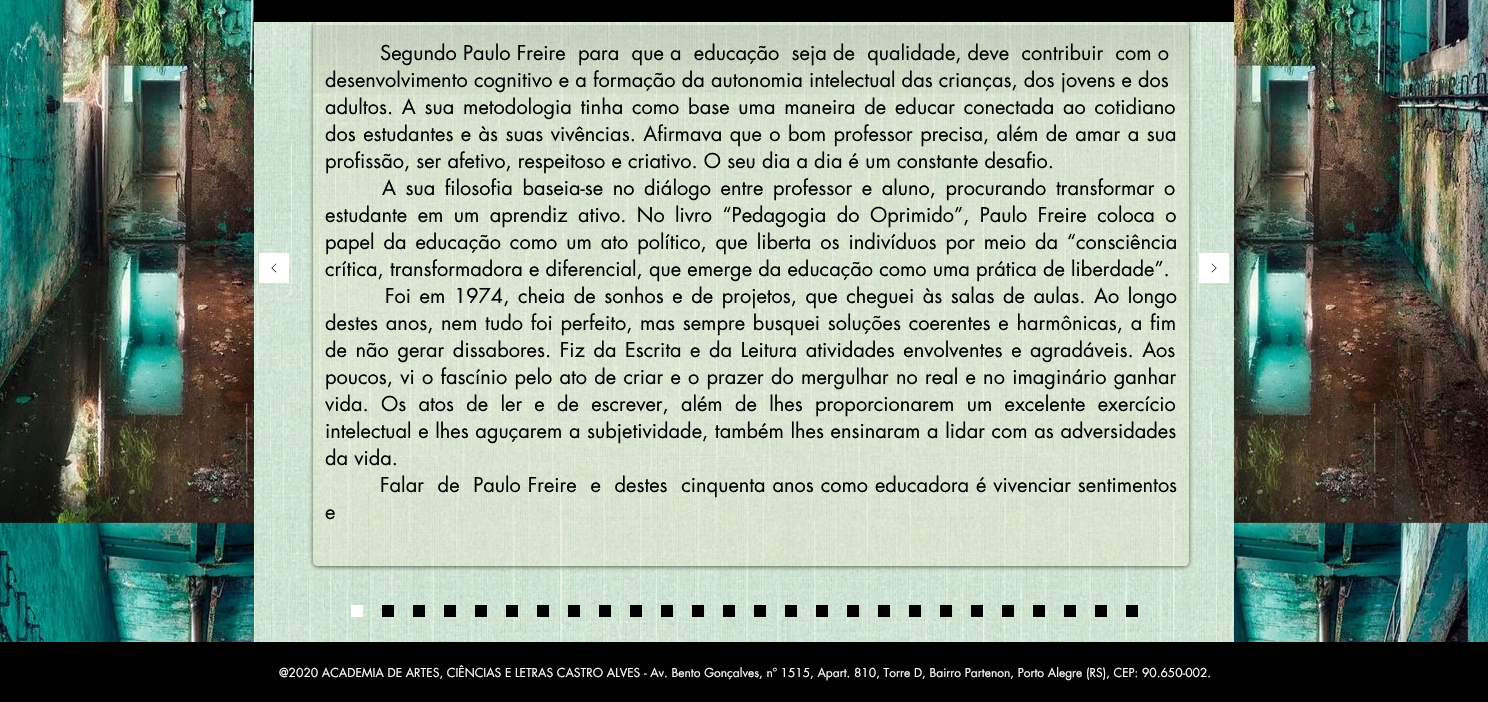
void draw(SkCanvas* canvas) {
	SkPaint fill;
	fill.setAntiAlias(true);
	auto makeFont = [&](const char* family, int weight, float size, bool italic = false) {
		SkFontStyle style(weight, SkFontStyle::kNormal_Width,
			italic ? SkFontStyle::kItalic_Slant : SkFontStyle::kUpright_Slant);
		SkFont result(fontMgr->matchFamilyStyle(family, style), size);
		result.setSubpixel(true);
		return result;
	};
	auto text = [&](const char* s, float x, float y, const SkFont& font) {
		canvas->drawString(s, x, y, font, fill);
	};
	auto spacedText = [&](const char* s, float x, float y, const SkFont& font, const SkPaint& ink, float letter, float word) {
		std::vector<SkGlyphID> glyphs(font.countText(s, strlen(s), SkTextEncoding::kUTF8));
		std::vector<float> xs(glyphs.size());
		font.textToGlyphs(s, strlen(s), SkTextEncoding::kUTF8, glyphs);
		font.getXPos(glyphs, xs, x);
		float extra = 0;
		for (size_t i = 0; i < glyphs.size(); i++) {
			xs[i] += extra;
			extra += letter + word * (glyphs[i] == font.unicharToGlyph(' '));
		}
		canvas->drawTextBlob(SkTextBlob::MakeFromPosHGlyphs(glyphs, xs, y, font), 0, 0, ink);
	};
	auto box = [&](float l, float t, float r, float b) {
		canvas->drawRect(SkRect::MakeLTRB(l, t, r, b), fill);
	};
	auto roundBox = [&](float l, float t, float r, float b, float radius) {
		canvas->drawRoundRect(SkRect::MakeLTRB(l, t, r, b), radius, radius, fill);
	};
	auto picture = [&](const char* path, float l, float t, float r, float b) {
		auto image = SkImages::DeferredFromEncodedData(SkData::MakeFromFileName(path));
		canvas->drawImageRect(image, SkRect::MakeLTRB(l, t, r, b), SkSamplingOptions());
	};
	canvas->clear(0xFFFFFFFF);
	picture("image0.png", 0, 0, 1488, 642);
	picture("image2.png", 254, 22, 1234, 642);
	picture("image1.png", 259, 253, 289, 283);
	fill.setColor(0xFF000000);
	box(254, 0, 1234, 22);
	canvas->save();
	canvas->clipPath(SkPathBuilder(SkPathFillType::kEvenOdd).moveTo(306, 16).lineTo(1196, 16).lineTo(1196, 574).lineTo(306, 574).close().moveTo(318, 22).lineTo(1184, 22).cubicTo(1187, 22, 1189, 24, 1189, 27).lineTo(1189, 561).cubicTo(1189, 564, 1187, 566, 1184, 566).lineTo(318, 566).cubicTo(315, 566, 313, 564, 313, 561).lineTo(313, 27).cubicTo(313, 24, 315, 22, 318, 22).close().detach(), true);
	fill.setColor(0x99000000);
	fill.setMaskFilter(SkMaskFilter::MakeBlur(kNormal_SkBlurStyle, 2));
	canvas->drawRoundRect(SkRect::MakeLTRB(313, 23, 1189, 567), 5, 5, fill);
	fill.setMaskFilter(nullptr);
	canvas->restore();
	fill.setColor(0x47F3E5CC);
	roundBox(313, 22, 1189, 566, 5);
	picture("image3.png", 313, 25, 1189, 94);
	picture("image4.png", 1199, 253, 1229, 283);
	fill.setColor(0xFFFFFFFF);
	box(351, 605, 363, 617);
	fill.setColor(0xFF000000);
	box(382, 605, 394, 617);
	box(413, 605, 425, 617);
	box(444, 605, 456, 617);
	box(475, 605, 487, 617);
	box(506, 605, 518, 617);
	box(537, 605, 549, 617);
	box(568, 605, 580, 617);
	box(599, 605, 611, 617);
	box(630, 605, 642, 617);
	box(661, 605, 673, 617);
	box(692, 605, 704, 617);
	box(723, 605, 735, 617);
	box(754, 605, 766, 617);
	box(785, 605, 797, 617);
	box(816, 605, 828, 617);
	box(847, 605, 859, 617);
	box(878, 605, 890, 617);
	box(909, 605, 921, 617);
	box(940, 605, 952, 617);
	box(971, 605, 983, 617);
	box(1002, 605, 1014, 617);
	box(1033, 605, 1045, 617);
	box(1064, 605, 1076, 617);
	box(1095, 605, 1107, 617);
	box(1126, 605, 1138, 617);
	box(0, 642, 1488, 702);
	auto font1 = makeFont("futura", 400, 20);
	text("Segundo Paulo Freire  para  que a  educação  seja de  qualidade, deve  contribuir  com o", 380, 60, font1);
	text("desenvolvimento cognitivo e a formação da autonomia intelectual das crianças, dos jovens e dos", 325, 87, font1);
	spacedText("adultos. A sua metodologia tinha como base uma maneira de educar conectada ao cotidiano", 325, 114, font1, fill, 0, 2.6f);
	spacedText("dos estudantes e às suas vivências. Afirmava que o bom professor precisa, além de amar a sua", 325, 141, font1, fill, 0, 1.25f);
	text("profissão, ser afetivo, respeitoso e criativo. O seu dia a dia é um constante desafio.", 325, 168, font1);
	spacedText("A sua filosofia baseia-se no diálogo entre professor e aluno, procurando transformar o", 382, 195, font1, fill, 0, 3.4f);
	spacedText("estudante em um aprendiz ativo. No livro “Pedagogia do Oprimido”, Paulo Freire coloca o", 325, 222, font1, fill, 0, 4.25f);
	spacedText("papel da educação como um ato político, que liberta os indivíduos por meio da “consciência", 325, 249, font1, fill, 0, 2.75f);
	text("crítica, transformadora e diferencial, que emerge da educação como uma prática de liberdade”.", 325, 276, font1);
	spacedText("Foi em 1974, cheia de sonhos e de projetos, que cheguei às salas de aulas. Ao longo", 385, 303, font1, fill, 0, 2.4f);
	spacedText("destes anos, nem tudo foi perfeito, mas sempre busquei soluções coerentes e harmônicas, a fim", 325, 330, font1, fill, 0, 1.6f);
	spacedText("de não gerar dissabores. Fiz da Escrita e da Leitura atividades envolventes e agradáveis. Aos", 325, 357, font1, fill, 0, 2.4f);
	spacedText("poucos, vi o fascínio pelo ato de criar e o prazer do mergulhar no real e no imaginário ganhar", 325, 384, font1, fill, 0, 1.1f);
	spacedText("vida. Os atos de ler e de escrever, além de lhes proporcionarem um excelente exercício", 325, 411, font1, fill, 0, 6.1f);
	spacedText("intelectual e lhes aguçarem a subjetividade, também lhes ensinaram a lidar com as adversidades", 325, 438, font1, fill, 0, 0.5f);
	text("da vida.", 325, 465, font1);
	spacedText("Falar  de  Paulo Freire  e  destes  cinquenta anos como educadora é vivenciar sentimentos", 380, 492, font1, fill, 0, 0.7f);
	text("e", 325, 519, font1);
	auto font2 = makeFont("futura", 400, 12);
	fill.setColor(0xFFFFFFFF);
	text("@2020 ACADEMIA DE ARTES, CIÊNCIAS E LETRAS CASTRO ALVES - Av. Bento Gonçalves, nº 1515, Apart. 810, Torre D, Bairro Partenon, Porto Alegre (RS), CEP: 90.650-002.", 279, 677, font2);
}
